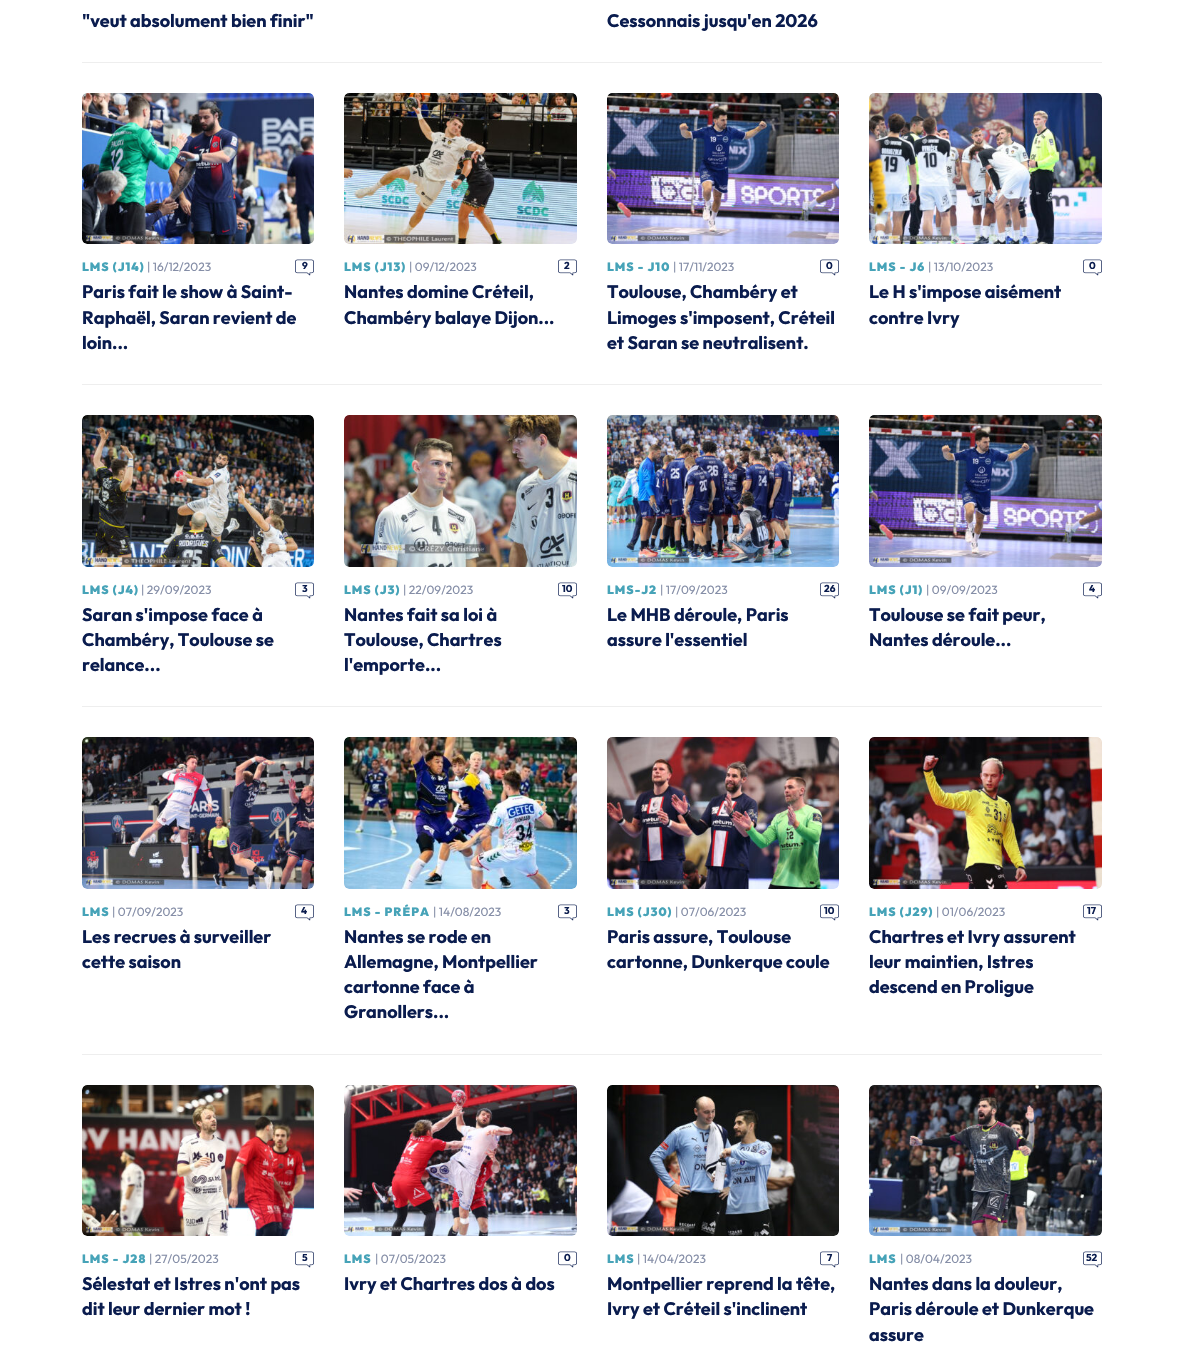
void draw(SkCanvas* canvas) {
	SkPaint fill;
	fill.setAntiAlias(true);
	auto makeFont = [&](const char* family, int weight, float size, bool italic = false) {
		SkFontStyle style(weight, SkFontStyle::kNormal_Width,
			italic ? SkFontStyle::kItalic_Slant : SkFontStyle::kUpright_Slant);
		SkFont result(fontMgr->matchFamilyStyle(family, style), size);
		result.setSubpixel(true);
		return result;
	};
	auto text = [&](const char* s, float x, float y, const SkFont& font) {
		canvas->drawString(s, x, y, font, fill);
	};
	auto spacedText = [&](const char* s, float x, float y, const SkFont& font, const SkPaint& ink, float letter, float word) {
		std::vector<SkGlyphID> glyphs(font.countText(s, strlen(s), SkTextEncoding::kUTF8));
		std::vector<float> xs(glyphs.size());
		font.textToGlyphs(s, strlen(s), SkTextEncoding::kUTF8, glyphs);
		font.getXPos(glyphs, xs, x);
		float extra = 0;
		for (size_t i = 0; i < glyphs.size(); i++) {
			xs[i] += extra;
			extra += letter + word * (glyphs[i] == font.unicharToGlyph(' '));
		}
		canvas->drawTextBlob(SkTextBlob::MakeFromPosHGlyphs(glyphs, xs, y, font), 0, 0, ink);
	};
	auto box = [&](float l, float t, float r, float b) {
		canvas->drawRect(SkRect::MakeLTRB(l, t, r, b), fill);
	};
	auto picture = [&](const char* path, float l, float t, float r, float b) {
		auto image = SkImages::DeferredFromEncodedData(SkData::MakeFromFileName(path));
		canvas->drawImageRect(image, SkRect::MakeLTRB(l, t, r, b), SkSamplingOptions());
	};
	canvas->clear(0xFFFFFFFF);
	fill.setColor(0xFFEEEEEE);
	box(82, 62, 1102, 63);
	picture("image0.png", 82, 93, 314, 244);
	box(82, 384, 1102, 385);
	picture("image2.png", 344, 93, 577, 244);
	picture("image4.png", 607, 93, 839, 244);
	picture("image6.png", 869, 93, 1102, 244);
	picture("image8.png", 82, 415, 314, 567);
	box(82, 706, 1102, 707);
	picture("image10.png", 344, 415, 577, 567);
	picture("image12.png", 607, 415, 839, 567);
	picture("image14.png", 869, 415, 1102, 567);
	picture("image16.png", 344, 737, 577, 889);
	picture("image18.png", 82, 737, 314, 889);
	box(82, 1054, 1102, 1055);
	picture("image20.png", 607, 737, 839, 889);
	picture("image22.png", 869, 737, 1102, 889);
	picture("image24.png", 82, 1085, 314, 1236);
	picture("image26.png", 344, 1085, 577, 1236);
	picture("image27.png", 607, 1085, 839, 1236);
	picture("image29.png", 869, 1085, 1102, 1236);
	auto font1 = makeFont("Outfit", 100, 18);
	fill.setColor(0xFF0A1C4E);
	text("\"veut absolument bien finir\"", 82, 27, font1);
	text("Cessonnais jusqu'en 2026", 607, 27, font1);
	auto font2 = makeFont("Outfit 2", 100, 12);
	fill.setColor(0xFF46A3B8);
	spacedText("LMS (J14)", 82, 271, font2, fill, 1, 0);
	auto font3 = makeFont("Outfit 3", 100, 12);
	fill.setColor(0xFF858EA7);
	text("| 16/12/2023", 147, 271, font3);
	auto font4 = makeFont("Outfit", 100, 10);
	fill.setColor(0xFF0A1C4E);
	text("9", 302, 269, font4);
	picture("image1.png", 295, 259, 314, 276);
	text("Paris fait le show à Saint-", 82, 298, font1);
	text("Raphaël, Saran revient de", 82, 324, font1);
	text("loin...", 82, 349, font1);
	fill.setColor(0xFF46A3B8);
	spacedText("LMS (J13)", 344, 271, font2, fill, 1, 0);
	fill.setColor(0xFF858EA7);
	text("| 09/12/2023", 409, 271, font3);
	fill.setColor(0xFF0A1C4E);
	text("2", 564, 269, font4);
	picture("image3.png", 558, 259, 577, 276);
	text("Nantes domine Créteil,", 344, 298, font1);
	text("Chambéry balaye Dijon...", 344, 324, font1);
	fill.setColor(0xFF46A3B8);
	spacedText("LMS - J10", 607, 271, font2, fill, 1, 0);
	fill.setColor(0xFF858EA7);
	text("| 17/11/2023", 673, 271, font3);
	fill.setColor(0xFF0A1C4E);
	text("0", 826, 269, font4);
	picture("image5.png", 820, 259, 839, 276);
	text("Toulouse, Chambéry et", 607, 298, font1);
	text("Limoges s'imposent, Créteil", 607, 324, font1);
	text("et Saran se neutralisent.", 607, 349, font1);
	fill.setColor(0xFF46A3B8);
	spacedText("LMS - J6", 869, 271, font2, fill, 1, 0);
	fill.setColor(0xFF858EA7);
	text("| 13/10/2023", 928, 271, font3);
	fill.setColor(0xFF0A1C4E);
	text("0", 1089, 269, font4);
	picture("image7.png", 1083, 259, 1102, 276);
	text("Le H s'impose aisément", 869, 298, font1);
	text("contre Ivry", 869, 324, font1);
	fill.setColor(0xFF46A3B8);
	spacedText("LMS (J4)", 82, 594, font2, fill, 1, 0);
	fill.setColor(0xFF858EA7);
	text("| 29/09/2023", 141, 594, font3);
	fill.setColor(0xFF0A1C4E);
	text("3", 302, 592, font4);
	picture("image9.png", 295, 582, 314, 599);
	text("Saran s'impose face à", 82, 621, font1);
	text("Chambéry, Toulouse se", 82, 646, font1);
	text("relance...", 82, 671, font1);
	fill.setColor(0xFF46A3B8);
	spacedText("LMS (J3)", 344, 594, font2, fill, 1, 0);
	fill.setColor(0xFF858EA7);
	text("| 22/09/2023", 403, 594, font3);
	fill.setColor(0xFF0A1C4E);
	text("10", 562, 592, font4);
	picture("image11.png", 558, 582, 577, 599);
	text("Nantes fait sa loi à", 344, 621, font1);
	text("Toulouse, Chartres", 344, 646, font1);
	text("l'emporte...", 344, 671, font1);
	fill.setColor(0xFF46A3B8);
	spacedText("LMS-J2", 607, 594, font2, fill, 1, 0);
	fill.setColor(0xFF858EA7);
	text("| 17/09/2023", 660, 594, font3);
	fill.setColor(0xFF0A1C4E);
	text("26", 824, 592, font4);
	picture("image13.png", 820, 582, 839, 599);
	text("Le MHB déroule, Paris", 607, 621, font1);
	text("assure l'essentiel", 607, 646, font1);
	fill.setColor(0xFF46A3B8);
	spacedText("LMS (J1)", 869, 594, font2, fill, 1, 0);
	fill.setColor(0xFF858EA7);
	text("| 09/09/2023", 926, 594, font3);
	fill.setColor(0xFF0A1C4E);
	text("4", 1089, 592, font4);
	picture("image15.png", 1083, 582, 1102, 599);
	text("Toulouse se fait peur,", 869, 621, font1);
	text("Nantes déroule...", 869, 646, font1);
	fill.setColor(0xFF46A3B8);
	spacedText("LMS - PRÉPA", 344, 916, font2, fill, 1, 0);
	fill.setColor(0xFF858EA7);
	text("| 14/08/2023", 433, 916, font3);
	fill.setColor(0xFF0A1C4E);
	text("3", 564, 914, font4);
	picture("image17.png", 558, 904, 577, 921);
	text("Nantes se rode en", 344, 943, font1);
	text("Allemagne, Montpellier", 344, 968, font1);
	text("cartonne face à", 344, 993, font1);
	text("Granollers...", 344, 1018, font1);
	fill.setColor(0xFF46A3B8);
	spacedText("LMS", 82, 916, font2, fill, 1, 0);
	fill.setColor(0xFF858EA7);
	text("| 07/09/2023", 112, 916, font3);
	fill.setColor(0xFF0A1C4E);
	text("4", 301, 914, font4);
	picture("image19.png", 295, 904, 314, 921);
	text("Les recrues à surveiller", 82, 943, font1);
	text("cette saison", 82, 968, font1);
	fill.setColor(0xFF46A3B8);
	spacedText("LMS (J30)", 607, 916, font2, fill, 1, 0);
	fill.setColor(0xFF858EA7);
	text("| 07/06/2023", 675, 916, font3);
	fill.setColor(0xFF0A1C4E);
	text("10", 824, 914, font4);
	picture("image21.png", 820, 904, 839, 921);
	text("Paris assure, Toulouse", 607, 943, font1);
	text("cartonne, Dunkerque coule", 607, 968, font1);
	fill.setColor(0xFF46A3B8);
	spacedText("LMS (J29)", 869, 916, font2, fill, 1, 0);
	fill.setColor(0xFF858EA7);
	text("| 01/06/2023", 936, 916, font3);
	fill.setColor(0xFF0A1C4E);
	text("17", 1087, 914, font4);
	picture("image23.png", 1083, 904, 1102, 921);
	text("Chartres et Ivry assurent", 869, 943, font1);
	text("leur maintien, Istres", 869, 968, font1);
	text("descend en Proligue", 869, 993, font1);
	fill.setColor(0xFF46A3B8);
	spacedText("LMS - J28", 82, 1263, font2, fill, 1, 0);
	fill.setColor(0xFF858EA7);
	text("| 27/05/2023", 149, 1263, font3);
	fill.setColor(0xFF0A1C4E);
	text("5", 302, 1261, font4);
	picture("image25.png", 295, 1251, 314, 1268);
	text("Sélestat et Istres n'ont pas", 82, 1290, font1);
	text("dit leur dernier mot !", 82, 1315, font1);
	fill.setColor(0xFFFFFFFF);
	box(81, 619, 82, 1311);
	fill.setColor(0xFF46A3B8);
	spacedText("LMS", 344, 1263, font2, fill, 1, 0);
	fill.setColor(0xFF858EA7);
	text("| 07/05/2023", 375, 1263, font3);
	fill.setColor(0xFF0A1C4E);
	text("0", 564, 1261, font4);
	picture("image7.png", 558, 1251, 577, 1268);
	text("Ivry et Chartres dos à dos", 344, 1290, font1);
	fill.setColor(0xFF46A3B8);
	spacedText("LMS", 607, 1263, font2, fill, 1, 0);
	fill.setColor(0xFF858EA7);
	text("| 14/04/2023", 637, 1263, font3);
	fill.setColor(0xFF0A1C4E);
	text("7", 827, 1261, font4);
	picture("image28.png", 820, 1251, 839, 1268);
	text("Montpellier reprend la tête,", 607, 1290, font1);
	text("Ivry et Créteil s'inclinent", 607, 1315, font1);
	fill.setColor(0xFF46A3B8);
	spacedText("LMS", 869, 1263, font2, fill, 1, 0);
	fill.setColor(0xFF858EA7);
	text("| 08/04/2023", 900, 1263, font3);
	fill.setColor(0xFF0A1C4E);
	text("52", 1086, 1261, font4);
	picture("image30.png", 1083, 1251, 1102, 1268);
	text("Nantes dans la douleur,", 869, 1290, font1);
	text("Paris déroule et Dunkerque", 869, 1315, font1);
	text("assure", 869, 1341, font1);
}
